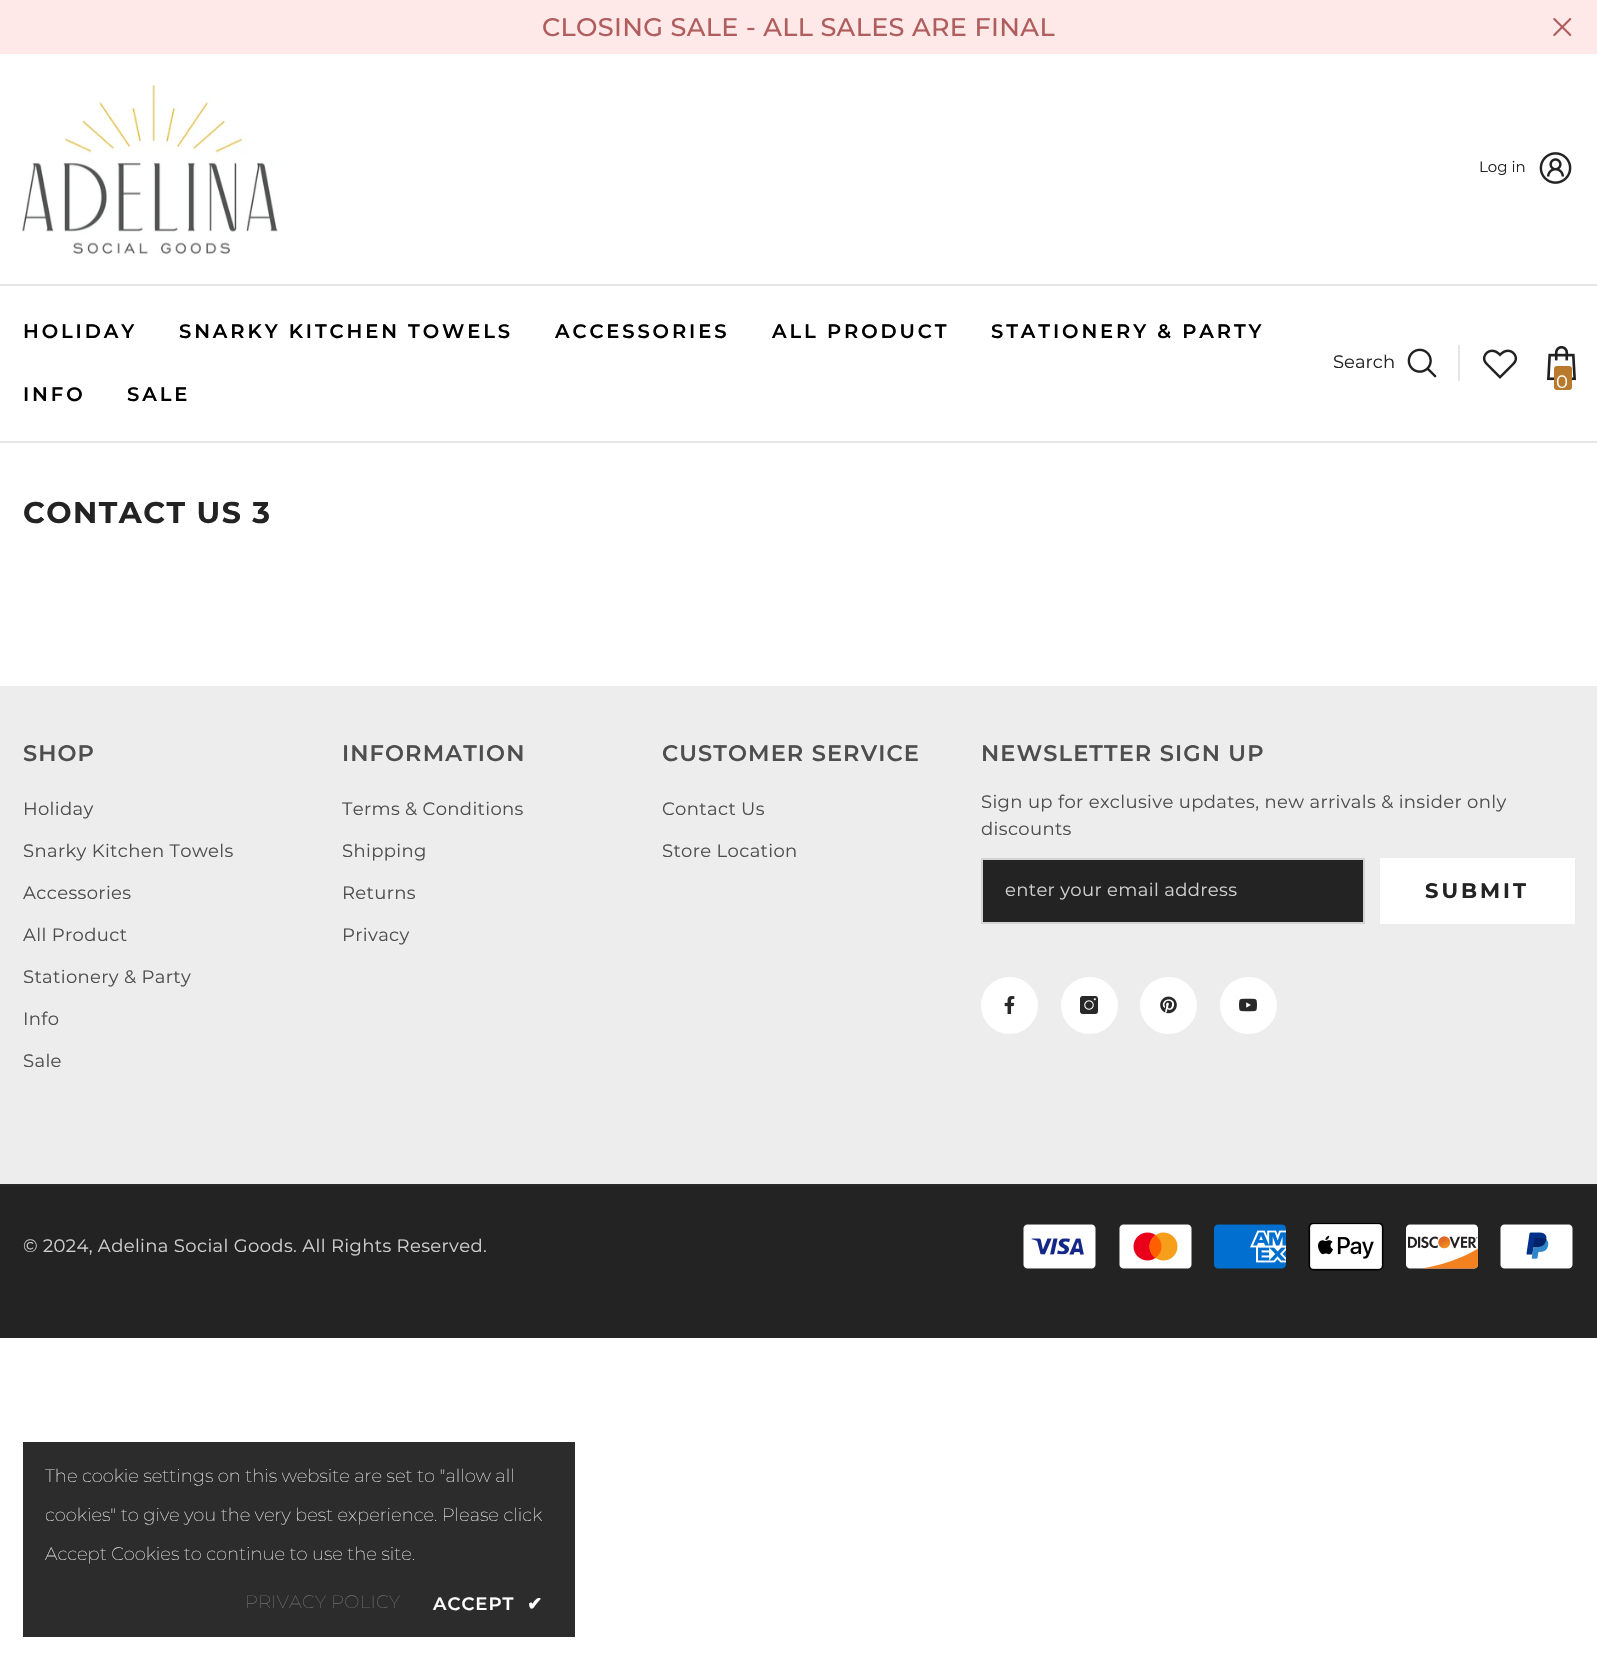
void draw(SkCanvas* canvas) {
	SkPaint fill;
	fill.setAntiAlias(true);
	auto makeFont = [&](const char* family, int weight, float size, bool italic = false) {
		SkFontStyle style(weight, SkFontStyle::kNormal_Width,
			italic ? SkFontStyle::kItalic_Slant : SkFontStyle::kUpright_Slant);
		SkFont result(fontMgr->matchFamilyStyle(family, style), size);
		result.setSubpixel(true);
		return result;
	};
	auto text = [&](const char* s, float x, float y, const SkFont& font) {
		canvas->drawString(s, x, y, font, fill);
	};
	auto spacedText = [&](const char* s, float x, float y, const SkFont& font, const SkPaint& ink, float letter, float word) {
		std::vector<SkGlyphID> glyphs(font.countText(s, strlen(s), SkTextEncoding::kUTF8));
		std::vector<float> xs(glyphs.size());
		font.textToGlyphs(s, strlen(s), SkTextEncoding::kUTF8, glyphs);
		font.getXPos(glyphs, xs, x);
		float extra = 0;
		for (size_t i = 0; i < glyphs.size(); i++) {
			xs[i] += extra;
			extra += letter + word * (glyphs[i] == font.unicharToGlyph(' '));
		}
		canvas->drawTextBlob(SkTextBlob::MakeFromPosHGlyphs(glyphs, xs, y, font), 0, 0, ink);
	};
	auto box = [&](float l, float t, float r, float b) {
		canvas->drawRect(SkRect::MakeLTRB(l, t, r, b), fill);
	};
	auto roundBox = [&](float l, float t, float r, float b, float radius) {
		canvas->drawRoundRect(SkRect::MakeLTRB(l, t, r, b), radius, radius, fill);
	};
	auto picture = [&](const char* path, float l, float t, float r, float b) {
		auto image = SkImages::DeferredFromEncodedData(SkData::MakeFromFileName(path));
		canvas->drawImageRect(image, SkRect::MakeLTRB(l, t, r, b), SkSamplingOptions());
	};
	canvas->clear(0xFFFFFFFF);
	fill.setColor(0xFFFFE8E8);
	box(0, 0, 1597, 54);
	picture("image0.png", 1553, 18, 1572, 36);
	picture("image1.png", 22, 85, 278, 254);
	picture("image2.png", 1539, 152, 1572, 184);
	fill.setColor(0xFFE6E6E6);
	box(0, 284, 1597, 286);
	box(0, 441, 1597, 443);
	picture("image3.png", 1407, 348, 1437, 378);
	box(1458, 345, 1460, 381);
	picture("image4.png", 1482, 349, 1518, 379);
	picture("image5.png", 1547, 345, 1576, 381);
	fill.setColor(0xFFBA7A2D);
	roundBox(1554, 366, 1572, 390, 3);
	fill.setColor(0xFFEDEDED);
	box(0, 686, 1597, 1184);
	fill.setColor(0xFF232323);
	canvas->drawRect(SkRect::MakeLTRB(982, 859, 1364, 923), fill);
	fill.setStyle(SkPaint::kStroke_Style);
	fill.setStrokeWidth(2);
	fill.setColor(0xFFD3D3D3);
	canvas->drawRect(SkRect::MakeLTRB(982, 859, 1364, 923), fill);
	fill.setStyle(SkPaint::kFill_Style);
	fill.setColor(0xFFFFFFFF);
	box(1380, 858, 1575, 924);
	canvas->drawCircle(1009.5f, 1005.5f, 27.5f, fill);
	fill.setStyle(SkPaint::kStroke_Style);
	canvas->drawCircle(1009.5f, 1005.5f, 27.5f, fill);
	picture("image6.png", 1004, 996, 1015, 1014);
	fill.setStyle(SkPaint::kFill_Style);
	canvas->drawCircle(1089.5f, 1005.5f, 27.5f, fill);
	fill.setStyle(SkPaint::kStroke_Style);
	canvas->drawCircle(1089.5f, 1005.5f, 27.5f, fill);
	picture("image7.png", 1080, 996, 1098, 1014);
	fill.setStyle(SkPaint::kFill_Style);
	canvas->drawCircle(1168.5f, 1005.5f, 27.5f, fill);
	fill.setStyle(SkPaint::kStroke_Style);
	canvas->drawCircle(1168.5f, 1005.5f, 27.5f, fill);
	picture("image8.png", 1160, 996, 1177, 1014);
	fill.setStyle(SkPaint::kFill_Style);
	canvas->drawCircle(1248.5f, 1005.5f, 27.5f, fill);
	fill.setStyle(SkPaint::kStroke_Style);
	canvas->drawCircle(1248.5f, 1005.5f, 27.5f, fill);
	picture("image9.png", 1239, 998, 1257, 1012);
	fill.setStyle(SkPaint::kFill_Style);
	fill.setColor(0xFF232323);
	box(0, 1186, 1597, 1338);
	fill.setColor(0xFF282828);
	box(0, 1184, 1597, 1186);
	picture("image10.png", 1023, 1224, 1096, 1269);
	picture("image11.png", 1119, 1224, 1192, 1269);
	picture("image12.png", 1214, 1224, 1286, 1269);
	picture("image13.png", 1308, 1223, 1384, 1271);
	picture("image14.png", 1406, 1224, 1479, 1269);
	picture("image15.png", 1500, 1224, 1573, 1269);
	fill.setColor(0xFF2C2C2C);
	box(23, 1442, 575, 1637);
	auto font1 = makeFont("Montserrat", 500, 25.5f);
	fill.setColor(0xFFB05D5D);
	spacedText("CLOSING SALE - ALL SALES ARE FINAL", 542, 36, font1, fill, 0.35f, 0);
	auto font2 = makeFont("Montserrat", 400, 15);
	fill.setColor(0xFF232323);
	text("Log in", 1479, 172, font2);
	auto font3 = makeFont("Montserrat", 600, 19.5f);
	fill.setColor(0xFF000000);
	spacedText("HOLIDAY", 23, 338, font3, fill, 2.9f, 0);
	spacedText("SNARKY KITCHEN TOWELS", 179, 338, font3, fill, 2.9f, 0);
	spacedText("ACCESSORIES", 555, 338, font3, fill, 2.9f, 0);
	spacedText("ALL PRODUCT", 772, 338, font3, fill, 2.9f, 0);
	spacedText("STATIONERY & PARTY", 991, 338, font3, fill, 2.9f, 0);
	spacedText("INFO", 23, 401, font3, fill, 2.9f, 0);
	spacedText("SALE", 127, 401, font3, fill, 2.9f, 0);
	auto font4 = makeFont("Montserrat", 400, 18);
	fill.setColor(0xFF232323);
	text("Search", 1333, 368, font4);
	fill.setColor(0xFFFFFFFF);
	text("0", 1556, 388, font4);
	auto font5 = makeFont("Montserrat", 700, 30);
	fill.setColor(0xFF232323);
	spacedText("CONTACT US 3", 23, 523, font5, fill, 1.5f, 0);
	auto font6 = makeFont("Montserrat", 600, 22.5f);
	fill.setColor(0xFF4E4E4E);
	spacedText("SHOP", 23, 761, font6, fill, 1.1f, 0);
	spacedText("Holiday", 23, 815, font4, fill, 0.35f, 0);
	spacedText("Snarky Kitchen Towels", 23, 857, font4, fill, 0.35f, 0);
	spacedText("Accessories", 23, 899, font4, fill, 0.35f, 0);
	spacedText("All Product", 23, 941, font4, fill, 0.35f, 0);
	spacedText("Stationery & Party", 23, 983, font4, fill, 0.35f, 0);
	spacedText("Info", 23, 1025, font4, fill, 0.35f, 0);
	spacedText("Sale", 23, 1067, font4, fill, 0.35f, 0);
	spacedText("INFORMATION", 342, 761, font6, fill, 1.1f, 0);
	spacedText("Terms & Conditions", 342, 815, font4, fill, 0.35f, 0);
	spacedText("Shipping", 342, 857, font4, fill, 0.35f, 0);
	spacedText("Returns", 342, 899, font4, fill, 0.35f, 0);
	spacedText("Privacy", 342, 941, font4, fill, 0.35f, 0);
	spacedText("CUSTOMER SERVICE", 662, 761, font6, fill, 1.1f, 0);
	spacedText("Contact Us", 662, 815, font4, fill, 0.35f, 0);
	spacedText("Store Location", 662, 857, font4, fill, 0.35f, 0);
	spacedText("NEWSLETTER SIGN UP", 981, 761, font6, fill, 1.1f, 0);
	spacedText("Sign up for exclusive updates, new arrivals & insider only", 981, 808, font4, fill, 0.35f, 0);
	spacedText("discounts", 981, 835, font4, fill, 0.35f, 0);
	fill.setColor(0xFFCFCFCF);
	spacedText("enter your email address", 1005, 896, font4, fill, 0.35f, 0);
	auto font7 = makeFont("Montserrat", 700, 21);
	fill.setColor(0xFF232323);
	spacedText("SUBMIT", 1425, 898, font7, fill, 3, 0);
	fill.setColor(0xFFCFCFCF);
	spacedText("© 2024, Adelina Social Goods. All Rights Reserved.", 23, 1252, font4, fill, 0.35f, 0);
	auto font8 = makeFont("Montserrat", 100, 18);
	fill.setColor(0xFFFFFFFF);
	text("The cookie settings on this website are set to \"allow all", 45, 1482, font8);
	text("cookies\" to give you the very best experience. Please click", 45, 1521, font8);
	text("Accept Cookies to continue to use the site.", 45, 1560, font8);
	fill.setColor(0xFF818181);
	spacedText("PRIVACY POLICY", 245, 1608, font8, fill, 0.35f, 0);
	auto font9 = makeFont("Montserrat", 600, 18);
	fill.setColor(0xFFFFFFFF);
	spacedText("ACCEPT", 433, 1610, font9, fill, 1, 0);
	auto font10 = makeFont("DejaVu Sans", 700, 18);
	spacedText("✔", 527, 1610, font10, fill, 1, 0);
}
